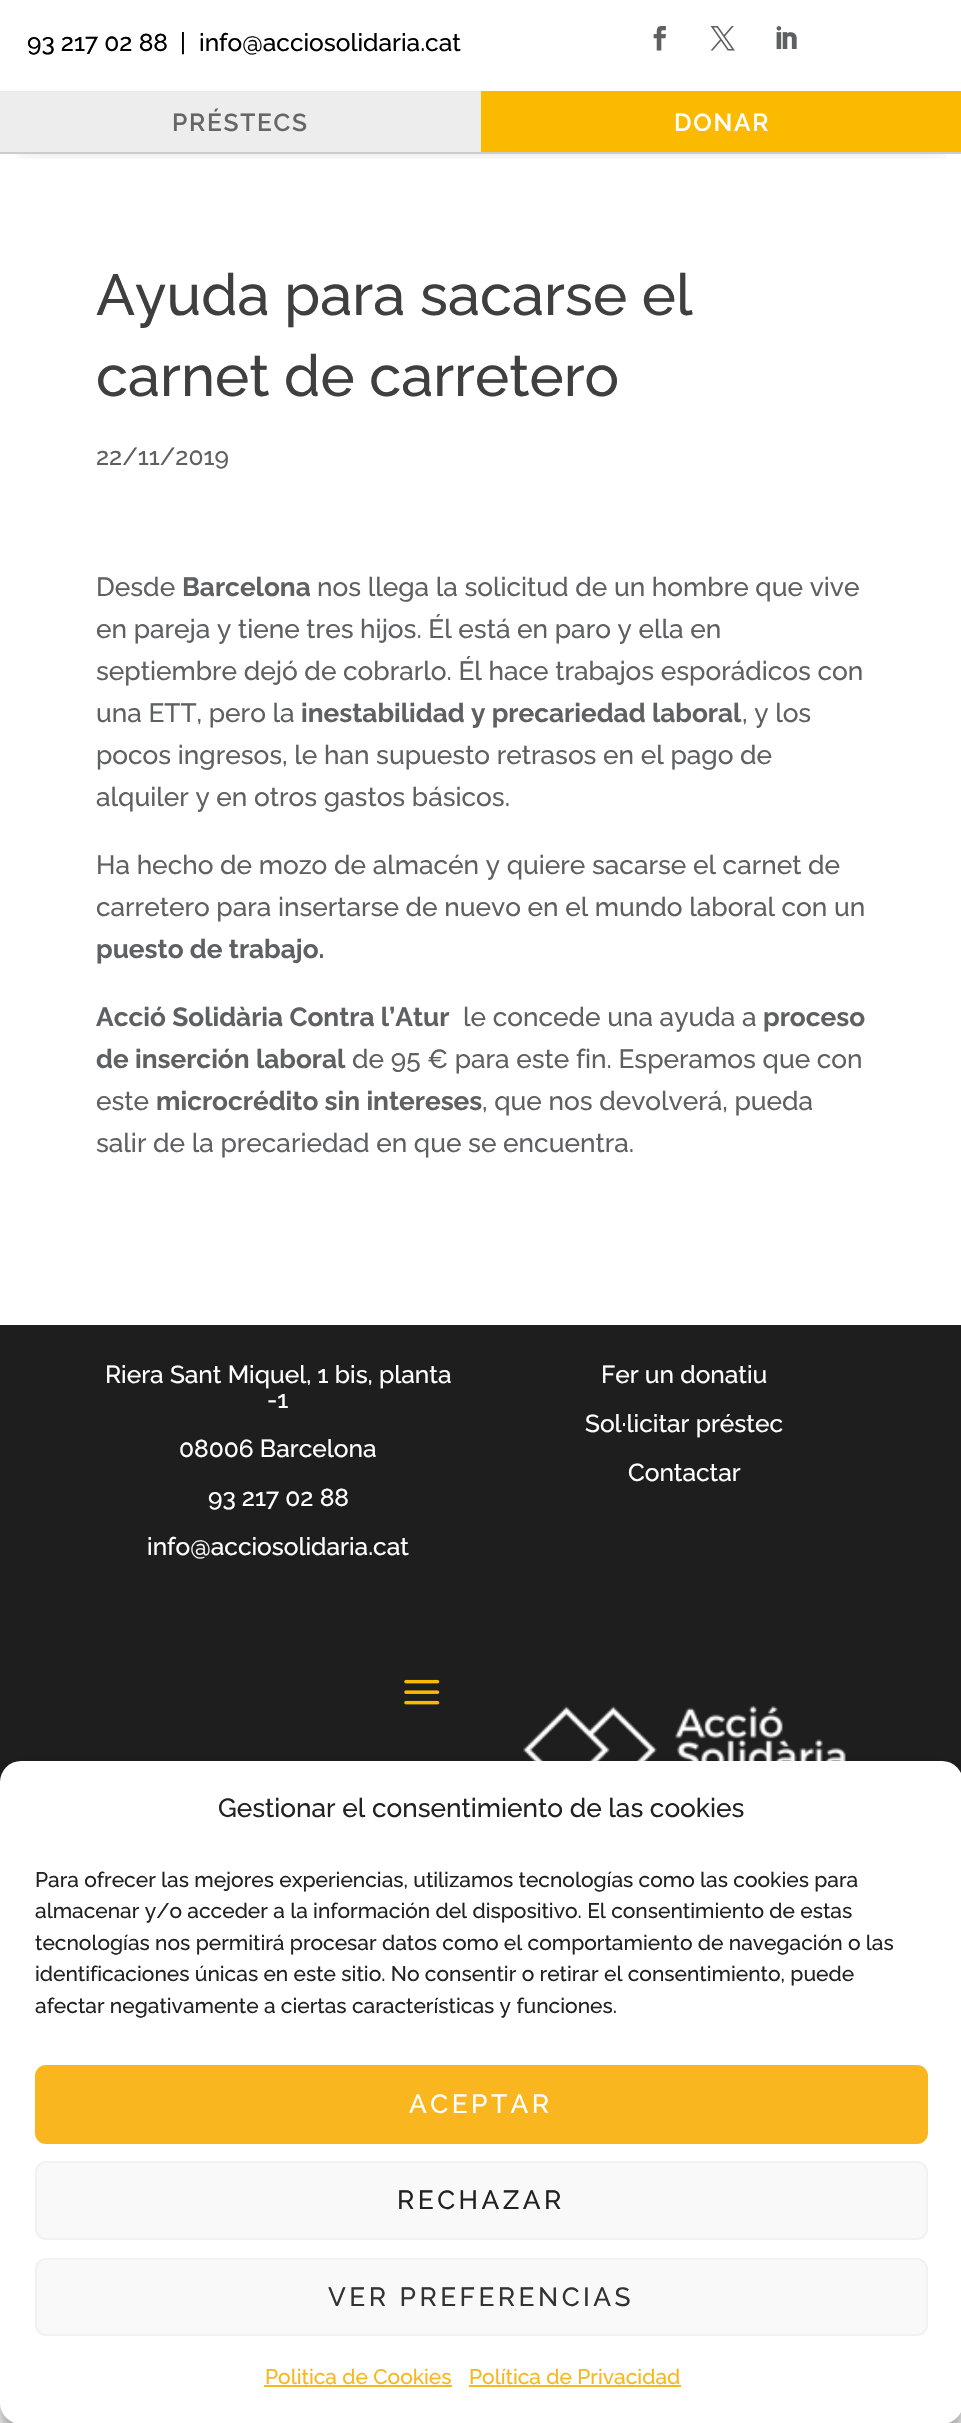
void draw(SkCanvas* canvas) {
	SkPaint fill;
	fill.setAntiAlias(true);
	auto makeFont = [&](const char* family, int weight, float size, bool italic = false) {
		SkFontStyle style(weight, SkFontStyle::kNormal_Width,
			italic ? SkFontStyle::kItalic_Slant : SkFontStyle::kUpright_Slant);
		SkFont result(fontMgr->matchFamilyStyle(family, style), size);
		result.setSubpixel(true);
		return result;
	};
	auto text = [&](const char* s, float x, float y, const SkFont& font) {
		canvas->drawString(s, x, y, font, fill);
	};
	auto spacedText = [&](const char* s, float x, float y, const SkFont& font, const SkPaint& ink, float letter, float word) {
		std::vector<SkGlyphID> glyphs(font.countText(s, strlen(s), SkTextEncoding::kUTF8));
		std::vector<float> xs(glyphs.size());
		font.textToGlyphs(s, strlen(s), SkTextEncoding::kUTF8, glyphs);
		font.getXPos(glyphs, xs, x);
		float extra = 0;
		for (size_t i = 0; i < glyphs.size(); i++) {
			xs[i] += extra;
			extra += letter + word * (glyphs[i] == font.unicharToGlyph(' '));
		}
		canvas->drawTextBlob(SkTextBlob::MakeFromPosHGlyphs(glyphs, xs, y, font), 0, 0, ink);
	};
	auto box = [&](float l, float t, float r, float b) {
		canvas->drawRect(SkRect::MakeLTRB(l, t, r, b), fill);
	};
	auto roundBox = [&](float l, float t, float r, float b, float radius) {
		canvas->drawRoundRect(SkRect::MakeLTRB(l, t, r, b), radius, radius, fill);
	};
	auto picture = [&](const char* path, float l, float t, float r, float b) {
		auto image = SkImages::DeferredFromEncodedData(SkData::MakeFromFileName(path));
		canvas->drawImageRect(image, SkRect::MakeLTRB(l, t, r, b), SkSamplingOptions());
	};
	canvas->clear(0xFFFFFFFF);
	canvas->save();
	canvas->clipRect(SkRect::MakeLTRB(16, 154, 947, 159));
	fill.setColor(0x4D000000);
	fill.setMaskFilter(SkMaskFilter::MakeBlur(kNormal_SkBlurStyle, 9.5f));
	canvas->drawRect(SkRect::MakeLTRB(18, 26, 945, 145), fill);
	fill.setMaskFilter(nullptr);
	canvas->restore();
	fill.setColor(0xFFCCCCCC);
	box(0, 152, 961, 154);
	picture("image0.png", 653, 26, 666, 51);
	picture("image1.png", 710, 26, 735, 51);
	picture("image2.png", 776, 26, 797, 49);
	fill.setColor(0xFFEEEDED);
	box(0, 91, 481, 152);
	fill.setColor(0xFFFBBA00);
	box(481, 91, 961, 152);
	fill.setColor(0xFF1E1E1E);
	box(0, 1325, 961, 1782);
	picture("image3.png", 404, 1679, 440, 1705);
	picture("image4.png", 523, 1705, 846, 1761);
	fill.setColor(0x3B000000);
	fill.setMaskFilter(SkMaskFilter::MakeBlur(kNormal_SkBlurStyle, 5));
	canvas->drawRoundRect(SkRect::MakeLTRB(0, 1771, 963, 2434), 21, 21, fill);
	fill.setMaskFilter(nullptr);
	fill.setColor(0x30000000);
	fill.setMaskFilter(SkMaskFilter::MakeBlur(kNormal_SkBlurStyle, 17.5f));
	canvas->drawRoundRect(SkRect::MakeLTRB(0, 1778, 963, 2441), 21, 21, fill);
	fill.setMaskFilter(nullptr);
	fill.setColor(0xFFFFFFFF);
	roundBox(0, 1761, 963, 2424, 21);
	fill.setColor(0xFFF9B61E);
	canvas->drawRoundRect(SkRect::MakeLTRB(36, 2066, 927, 2143), 10, 10, fill);
	fill.setStyle(SkPaint::kStroke_Style);
	fill.setStrokeWidth(2);
	canvas->drawRoundRect(SkRect::MakeLTRB(36, 2066, 927, 2143), 10, 10, fill);
	fill.setStyle(SkPaint::kFill_Style);
	fill.setColor(0xFFF9F9F9);
	canvas->drawRoundRect(SkRect::MakeLTRB(36, 2162, 927, 2239), 10, 10, fill);
	fill.setStyle(SkPaint::kStroke_Style);
	fill.setColor(0xFFF2F2F2);
	canvas->drawRoundRect(SkRect::MakeLTRB(36, 2162, 927, 2239), 10, 10, fill);
	fill.setStyle(SkPaint::kFill_Style);
	fill.setColor(0xFFF9F9F9);
	canvas->drawRoundRect(SkRect::MakeLTRB(36, 2259, 927, 2335), 10, 10, fill);
	fill.setStyle(SkPaint::kStroke_Style);
	fill.setColor(0xFFF2F2F2);
	canvas->drawRoundRect(SkRect::MakeLTRB(36, 2259, 927, 2335), 10, 10, fill);
	fill.setStyle(SkPaint::kFill_Style);
	fill.setColor(0xFFF9B61E);
	box(264, 2385, 452, 2387);
	box(469, 2385, 681, 2387);
	auto font1 = makeFont("Raleway", 500, 24.5f);
	fill.setColor(0xFF000000);
	text("93 217 02 88", 27, 51, font1);
	text("|", 180, 51, font1);
	text("info@acciosolidaria.cat", 199, 51, font1);
	auto font2 = makeFont("Raleway", 600, 24.5f);
	fill.setColor(0xFF666666);
	spacedText("PRÉSTECS", 172, 131, font2, fill, 1.75f, 0);
	fill.setColor(0xFFFFFFFF);
	spacedText("DONAR", 674, 131, font2, fill, 1.75f, 0);
	auto font3 = makeFont("Raleway", 500, 57.75f);
	fill.setColor(0xFF3F3F3F);
	text("Ayuda para sacarse el", 96, 315, font3);
	text("carnet de carretero", 96, 396, font3);
	fill.setColor(0xFF5F6062);
	text("22/11/2019", 96, 465, font1);
	auto font4 = makeFont("Raleway", 500, 26.25f);
	text("Desde", 96, 596, font4);
	auto font5 = makeFont("Raleway", 700, 26.25f);
	text("Barcelona", 182, 596, font5);
	text("nos llega la solicitud de un hombre que vive", 317, 596, font4);
	text("en pareja y tiene tres hijos. Él está en paro y ella en", 96, 638, font4);
	text("septiembre dejó de cobrarlo. Él hace trabajos esporádicos con", 96, 680, font4);
	text("una ETT, pero la", 96, 722, font4);
	text("inestabilidad y precariedad laboral", 301, 722, font5);
	text(", y los", 742, 722, font4);
	text("pocos ingresos, le han supuesto retrasos en el pago de", 96, 764, font4);
	text("alquiler y en otros gastos básicos.", 96, 806, font4);
	text("Ha hecho de mozo de almacén y quiere sacarse el carnet de", 96, 874, font4);
	text("carretero para insertarse de nuevo en el mundo laboral con un", 96, 916, font4);
	text("puesto de trabajo.", 96, 958, font5);
	text("Acció Solidària Contra l’Atur", 96, 1026, font5);
	text("le concede una ayuda a", 463, 1026, font4);
	text("proceso", 763, 1026, font5);
	text("de inserción laboral", 96, 1068, font5);
	text("de 95 € para este fin. Esperamos que con", 352, 1068, font4);
	text("este", 96, 1110, font4);
	text("microcrédito sin intereses", 156, 1110, font5);
	text(", que nos devolverá, pueda", 482, 1110, font4);
	text("salir de la precariedad en que se encuentra.", 96, 1152, font4);
	fill.setColor(0xFFFFFFFF);
	text("Riera Sant Miquel, 1 bis, planta", 105, 1383, font1);
	text("-1", 267, 1408, font1);
	text("08006 Barcelona", 179, 1457, font1);
	text("93 217 02 88", 208, 1506, font1);
	text("info@acciosolidaria.cat", 147, 1555, font1);
	text("Fer un donatiu", 601, 1383, font1);
	text("Sol·licitar préstec", 585, 1432, font1);
	text("Contactar", 628, 1481, font1);
	fill.setColor(0xFF222222);
	text("Gestionar el consentimiento de las cookies", 218, 1817, font4);
	auto font6 = makeFont("Raleway", 500, 21);
	text("Para ofrecer las mejores experiencias, utilizamos tecnologías como las cookies para", 35, 1887, font6);
	text("almacenar y/o acceder a la información del dispositivo. El consentimiento de estas", 35, 1918, font6);
	text("tecnologías nos permitirá procesar datos como el comportamiento de navegación o las", 35, 1950, font6);
	text("identificaciones únicas en este sitio. No consentir o retirar el consentimiento, puede", 35, 1981, font6);
	text("afectar negativamente a ciertas características y funciones.", 35, 2013, font6);
	fill.setColor(0xFFFFFFFF);
	spacedText("ACEPTAR", 409, 2113, font4, fill, 3.5f, 0);
	fill.setColor(0xFF222222);
	spacedText("RECHAZAR", 397, 2209, font4, fill, 3.5f, 0);
	fill.setColor(0xFF333333);
	spacedText("VER PREFERENCIAS", 328, 2306, font4, fill, 3.5f, 0);
	fill.setColor(0xFFF9B61E);
	text("Politica de Cookies", 265, 2384, font6);
	text("Política de Privacidad", 469, 2384, font6);
}
